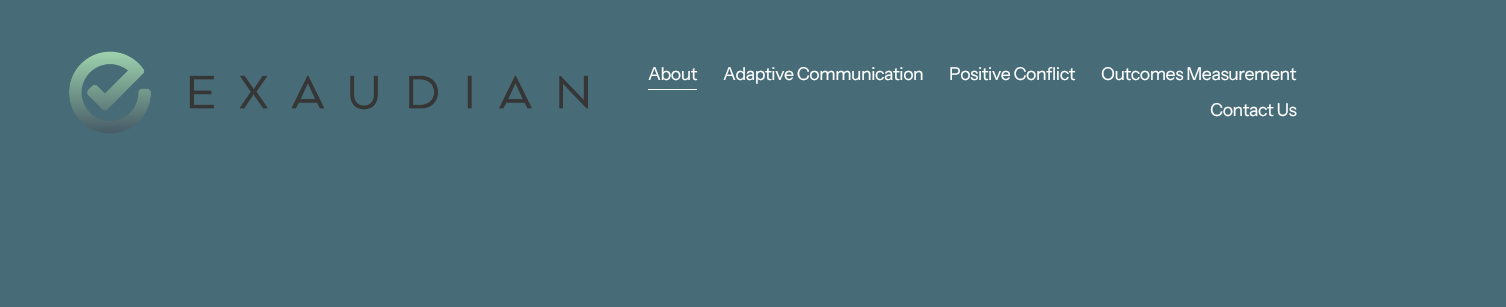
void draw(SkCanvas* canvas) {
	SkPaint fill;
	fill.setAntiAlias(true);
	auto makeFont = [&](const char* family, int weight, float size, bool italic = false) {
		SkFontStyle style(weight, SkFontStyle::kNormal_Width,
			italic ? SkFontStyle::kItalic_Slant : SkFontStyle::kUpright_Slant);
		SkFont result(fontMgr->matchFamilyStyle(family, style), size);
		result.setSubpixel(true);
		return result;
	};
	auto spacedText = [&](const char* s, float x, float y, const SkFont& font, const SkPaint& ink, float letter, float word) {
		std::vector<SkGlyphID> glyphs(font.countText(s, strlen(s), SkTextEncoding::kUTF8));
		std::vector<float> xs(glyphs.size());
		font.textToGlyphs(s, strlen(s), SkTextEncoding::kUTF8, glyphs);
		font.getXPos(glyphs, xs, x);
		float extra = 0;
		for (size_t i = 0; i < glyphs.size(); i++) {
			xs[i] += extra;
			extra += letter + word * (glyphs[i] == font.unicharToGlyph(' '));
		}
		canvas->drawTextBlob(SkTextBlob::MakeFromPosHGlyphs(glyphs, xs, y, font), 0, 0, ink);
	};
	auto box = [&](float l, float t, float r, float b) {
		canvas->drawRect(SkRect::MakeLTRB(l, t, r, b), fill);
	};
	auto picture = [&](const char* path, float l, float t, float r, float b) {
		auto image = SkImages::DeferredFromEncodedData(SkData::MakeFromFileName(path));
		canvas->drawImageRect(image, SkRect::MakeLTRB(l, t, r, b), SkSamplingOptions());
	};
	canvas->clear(0xFF476C77);
	picture("image0.png", 69, 51, 588, 134);
	fill.setColor(0xFFFFFFFF);
	box(648, 89, 697, 90);
	auto font1 = makeFont("Instrument Sans", 400, 17.75f);
	spacedText("About", 648, 80, font1, fill, -0.45f, 0);
	spacedText("Adaptive Communication", 723, 80, font1, fill, -0.45f, 0);
	spacedText("Positive Conflict", 949, 80, font1, fill, -0.45f, 0);
	spacedText("Outcomes Measurement", 1101, 80, font1, fill, -0.45f, 0);
	spacedText("Contact Us", 1210, 116, font1, fill, -0.45f, 0);
}
